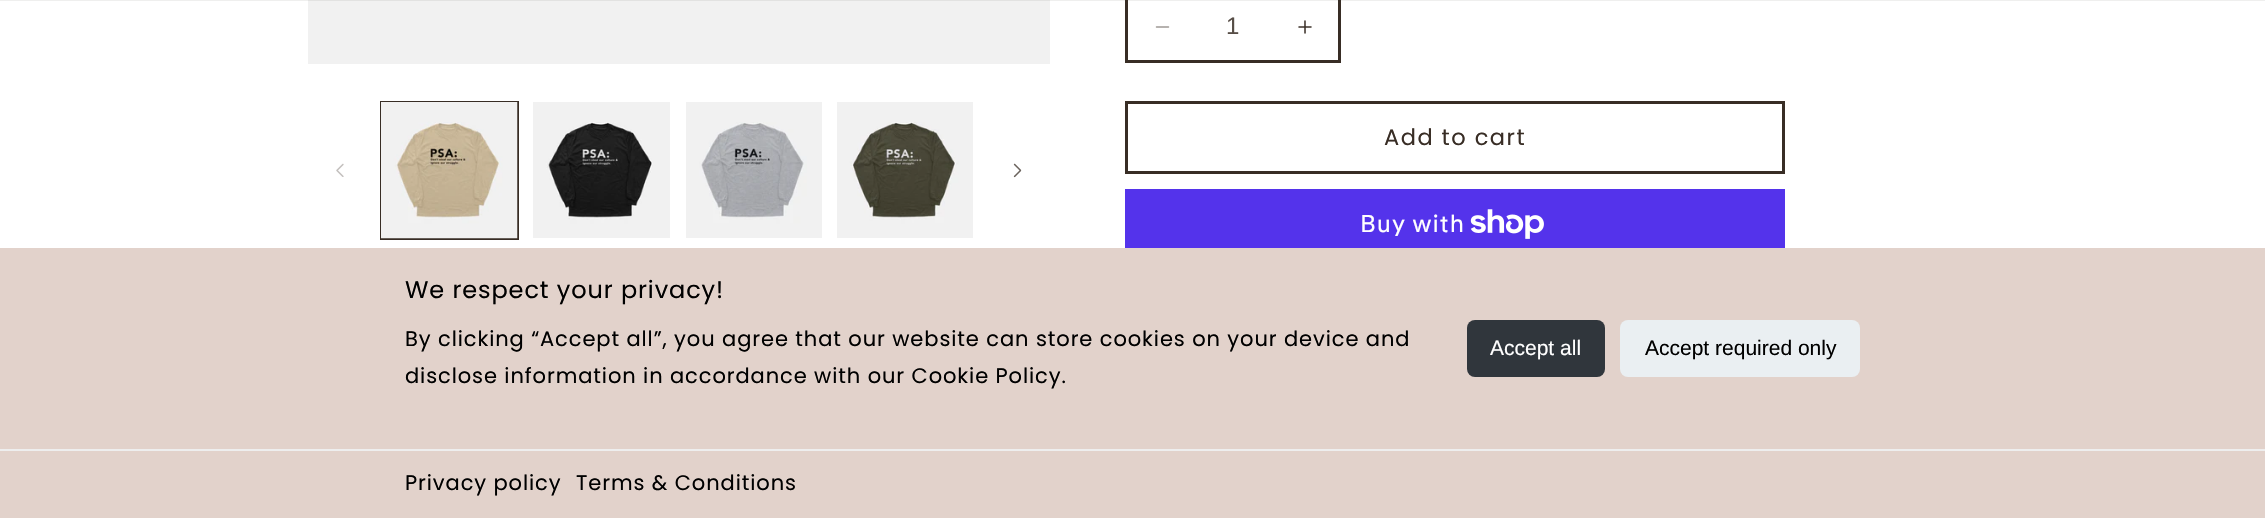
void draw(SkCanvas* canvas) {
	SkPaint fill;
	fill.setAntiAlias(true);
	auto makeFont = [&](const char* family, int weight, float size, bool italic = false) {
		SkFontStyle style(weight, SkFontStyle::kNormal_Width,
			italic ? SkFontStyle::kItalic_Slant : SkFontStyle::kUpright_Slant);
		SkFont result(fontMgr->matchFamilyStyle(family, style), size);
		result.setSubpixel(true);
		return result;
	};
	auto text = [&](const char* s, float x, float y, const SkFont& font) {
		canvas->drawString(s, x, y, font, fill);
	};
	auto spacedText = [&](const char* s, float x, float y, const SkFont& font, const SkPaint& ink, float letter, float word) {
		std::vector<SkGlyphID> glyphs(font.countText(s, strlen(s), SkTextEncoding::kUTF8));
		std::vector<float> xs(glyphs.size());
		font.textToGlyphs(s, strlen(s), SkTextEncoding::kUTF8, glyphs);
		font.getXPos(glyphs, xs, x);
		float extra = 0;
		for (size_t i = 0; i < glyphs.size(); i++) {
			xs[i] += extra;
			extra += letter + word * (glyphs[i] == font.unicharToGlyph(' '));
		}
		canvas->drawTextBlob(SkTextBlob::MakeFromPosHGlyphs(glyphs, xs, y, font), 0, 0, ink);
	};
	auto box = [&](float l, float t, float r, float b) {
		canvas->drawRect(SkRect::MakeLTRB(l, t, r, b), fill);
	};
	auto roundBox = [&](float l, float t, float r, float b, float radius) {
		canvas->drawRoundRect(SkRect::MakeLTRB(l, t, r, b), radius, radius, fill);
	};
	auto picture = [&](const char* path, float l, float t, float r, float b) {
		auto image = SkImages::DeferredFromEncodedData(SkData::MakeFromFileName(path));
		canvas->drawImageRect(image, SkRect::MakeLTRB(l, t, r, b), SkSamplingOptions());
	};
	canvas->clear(0xFFFFFFFF);
	fill.setColor(0xFFF1F1F1);
	box(308, 0, 1050, 64);
	picture("image6.png", 1155, 26, 1170, 28);
	picture("image7.png", 1298, 20, 1312, 34);
	fill.setStyle(SkPaint::kStroke_Style);
	fill.setStrokeWidth(3);
	fill.setColor(0xFF382D25);
	canvas->drawRect(SkRect::MakeLTRB(1126.5f, -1.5f, 1339.5f, 61.5f), fill);
	fill.setStyle(SkPaint::kFill_Style);
	fill.setColor(0x14382D25);
	box(0, 0, 2265, 1);
	picture("image0.png", 336, 163, 344, 177);
	fill.setStyle(SkPaint::kStroke_Style);
	fill.setStrokeWidth(2);
	fill.setColor(0xFF382D25);
	canvas->drawRect(SkRect::MakeLTRB(381, 102, 518, 239), fill);
	picture("image1.png", 381, 102, 518, 239);
	picture("image2.png", 533, 102, 670, 238);
	picture("image3.png", 686, 102, 822, 238);
	picture("image4.png", 837, 102, 973, 238);
	picture("image5.png", 1013, 163, 1022, 178);
	fill.setStrokeWidth(3);
	canvas->drawRect(SkRect::MakeLTRB(1126.5f, 102.5f, 1783.5f, 172.5f), fill);
	fill.setStyle(SkPaint::kFill_Style);
	fill.setColor(0xFF5433EB);
	box(1125, 189, 1785, 248);
	picture("image8.png", 1470, 209, 1544, 239);
	fill.setColor(0xFFE2D2CB);
	box(0, 248, 2265, 518);
	fill.setColor(0xFF30363C);
	roundBox(1467, 320, 1605, 377, 8);
	fill.setColor(0xFFEAEFF2);
	roundBox(1620, 320, 1860, 377, 8);
	fill.setColor(0xFFEEEEEE);
	box(0, 449, 2265, 451);
	auto font1 = makeFont("Liberation Sans", 400, 24);
	fill.setColor(0xFF564D46);
	text("1", 1226, 34, font1);
	auto font2 = makeFont("Poppins", 400, 22.5f);
	fill.setColor(0xFF382D25);
	spacedText("Add to cart", 1384, 145, font2, fill, 1.5f, 0);
	auto font3 = makeFont("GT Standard", 400, 24);
	fill.setColor(0xFFFFFFFF);
	spacedText("Buy with", 1360, 232, font3, fill, 0.9f, 0);
	auto font4 = makeFont("Poppins", 400, 24);
	fill.setColor(0xFF000000);
	spacedText("We respect your privacy!", 405, 298, font4, fill, 0.9f, 0);
	auto font5 = makeFont("Poppins", 400, 21);
	spacedText("By clicking “Accept all”, you agree that our website can store cookies on your device and", 405, 346, font5, fill, 0.9f, 0);
	spacedText("disclose information in accordance with our Cookie Policy.", 405, 383, font5, fill, 0.9f, 0);
	auto font6 = makeFont("Liberation Sans", 400, 21);
	fill.setColor(0xFFFFFFFF);
	text("Accept all", 1490, 355, font6);
	fill.setColor(0xFF000000);
	text("Accept required only", 1645, 355, font6);
	spacedText("Privacy policy", 405, 490, font5, fill, 0.9f, 0);
	spacedText("Terms & Conditions", 576, 490, font5, fill, 0.9f, 0);
}
